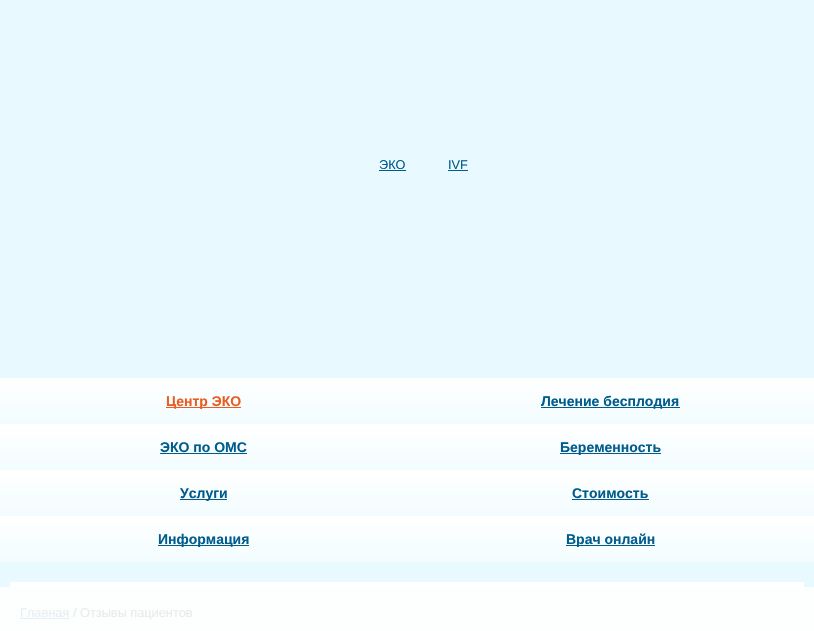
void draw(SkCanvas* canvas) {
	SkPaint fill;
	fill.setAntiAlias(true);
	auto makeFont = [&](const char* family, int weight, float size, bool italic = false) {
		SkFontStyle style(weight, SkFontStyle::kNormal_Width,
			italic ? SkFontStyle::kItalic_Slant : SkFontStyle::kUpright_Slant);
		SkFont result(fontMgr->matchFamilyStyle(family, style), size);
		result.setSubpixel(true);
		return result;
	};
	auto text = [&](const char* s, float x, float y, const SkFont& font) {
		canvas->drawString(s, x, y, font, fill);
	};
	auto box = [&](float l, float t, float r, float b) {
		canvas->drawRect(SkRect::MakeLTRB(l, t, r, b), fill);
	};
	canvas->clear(0xFFE8FAFF);
	fill.setColor(0xFFFDFFFF);
	box(0, 587, 814, 631);
	fill.setColor(0xFF005C8C);
	box(379, 170, 406, 171);
	box(448, 170, 468, 171);
	{
		const SkColor colors[] = {0xFFFFFFFF, 0xFFF2FCFF};
		const float stops[] = {0.01f, 1};
		const SkPoint ends[] = {{204, 378}, {204, 424}};
		fill.setShader(SkGradientShader::MakeLinear(ends, colors, stops, 2, SkTileMode::kClamp));
		fill.setAlpha(255);
	}
	box(0, 378, 407, 424);
	fill.setShader(nullptr);
	fill.setColor(0xFFEA5D20);
	box(166, 407, 241, 408);
	{
		const SkColor colors[] = {0xFFFFFFFF, 0xFFF2FCFF};
		const float stops[] = {0.01f, 1};
		const SkPoint ends[] = {{611, 378}, {611, 424}};
		fill.setShader(SkGradientShader::MakeLinear(ends, colors, stops, 2, SkTileMode::kClamp));
		fill.setAlpha(255);
	}
	box(407, 378, 814, 424);
	fill.setShader(nullptr);
	fill.setColor(0xFF005C8C);
	box(541, 407, 680, 408);
	{
		const SkColor colors[] = {0xFFFFFFFF, 0xFFF2FCFF};
		const float stops[] = {0.01f, 1};
		const SkPoint ends[] = {{204, 424}, {204, 470}};
		fill.setShader(SkGradientShader::MakeLinear(ends, colors, stops, 2, SkTileMode::kClamp));
		fill.setAlpha(255);
	}
	box(0, 424, 407, 470);
	fill.setShader(nullptr);
	fill.setColor(0xFF005C8C);
	box(160, 453, 247, 454);
	{
		const SkColor colors[] = {0xFFFFFFFF, 0xFFF2FCFF};
		const float stops[] = {0.01f, 1};
		const SkPoint ends[] = {{611, 424}, {611, 470}};
		fill.setShader(SkGradientShader::MakeLinear(ends, colors, stops, 2, SkTileMode::kClamp));
		fill.setAlpha(255);
	}
	box(407, 424, 814, 470);
	fill.setShader(nullptr);
	fill.setColor(0xFF005C8C);
	box(560, 453, 661, 454);
	{
		const SkColor colors[] = {0xFFFFFFFF, 0xFFF2FCFF};
		const float stops[] = {0.01f, 1};
		const SkPoint ends[] = {{204, 470}, {204, 516}};
		fill.setShader(SkGradientShader::MakeLinear(ends, colors, stops, 2, SkTileMode::kClamp));
		fill.setAlpha(255);
	}
	box(0, 470, 407, 516);
	fill.setShader(nullptr);
	fill.setColor(0xFF005C8C);
	box(180, 499, 227, 500);
	{
		const SkColor colors[] = {0xFFFFFFFF, 0xFFF2FCFF};
		const float stops[] = {0.01f, 1};
		const SkPoint ends[] = {{611, 470}, {611, 516}};
		fill.setShader(SkGradientShader::MakeLinear(ends, colors, stops, 2, SkTileMode::kClamp));
		fill.setAlpha(255);
	}
	box(407, 470, 814, 516);
	fill.setShader(nullptr);
	fill.setColor(0xFF005C8C);
	box(572, 499, 649, 500);
	{
		const SkColor colors[] = {0xFFFFFFFF, 0xFFF2FCFF};
		const float stops[] = {0.01f, 1};
		const SkPoint ends[] = {{204, 516}, {204, 562}};
		fill.setShader(SkGradientShader::MakeLinear(ends, colors, stops, 2, SkTileMode::kClamp));
		fill.setAlpha(255);
	}
	box(0, 516, 407, 562);
	fill.setShader(nullptr);
	fill.setColor(0xFF005C8C);
	box(158, 545, 249, 546);
	{
		const SkColor colors[] = {0xFFFFFFFF, 0xFFF2FCFF};
		const float stops[] = {0.01f, 1};
		const SkPoint ends[] = {{611, 516}, {611, 562}};
		fill.setShader(SkGradientShader::MakeLinear(ends, colors, stops, 2, SkTileMode::kClamp));
		fill.setAlpha(255);
	}
	box(407, 516, 814, 562);
	fill.setShader(nullptr);
	fill.setColor(0xFF005C8C);
	box(566, 545, 655, 546);
	fill.setColor(0xFFFFFFFF);
	box(10, 582, 804, 587);
	fill.setColor(0xFFE6EFF4);
	box(20, 618, 69, 619);
	auto font1 = makeFont("Liberation Sans", 400, 12.75f);
	fill.setColor(0xFF005C8C);
	text("ЭКО", 379, 169, font1);
	text("IVF", 448, 169, font1);
	auto font2 = makeFont("Liberation Sans", 700, 14);
	fill.setColor(0xFFEA5D20);
	text("Центр ЭКО", 166, 406, font2);
	fill.setColor(0xFF005C8C);
	text("Лечение бесплодия", 541, 406, font2);
	text("ЭКО по ОМС", 160, 452, font2);
	text("Беременность", 560, 452, font2);
	text("Услуги", 180, 498, font2);
	text("Стоимость", 572, 498, font2);
	text("Информация", 158, 544, font2);
	text("Врач онлайн", 566, 544, font2);
	fill.setColor(0xFFE6EFF4);
	text("Главная", 20, 617, font1);
	fill.setColor(0xFFEAEAEA);
	text("/ Отзывы пациентов", 73, 617, font1);
}
